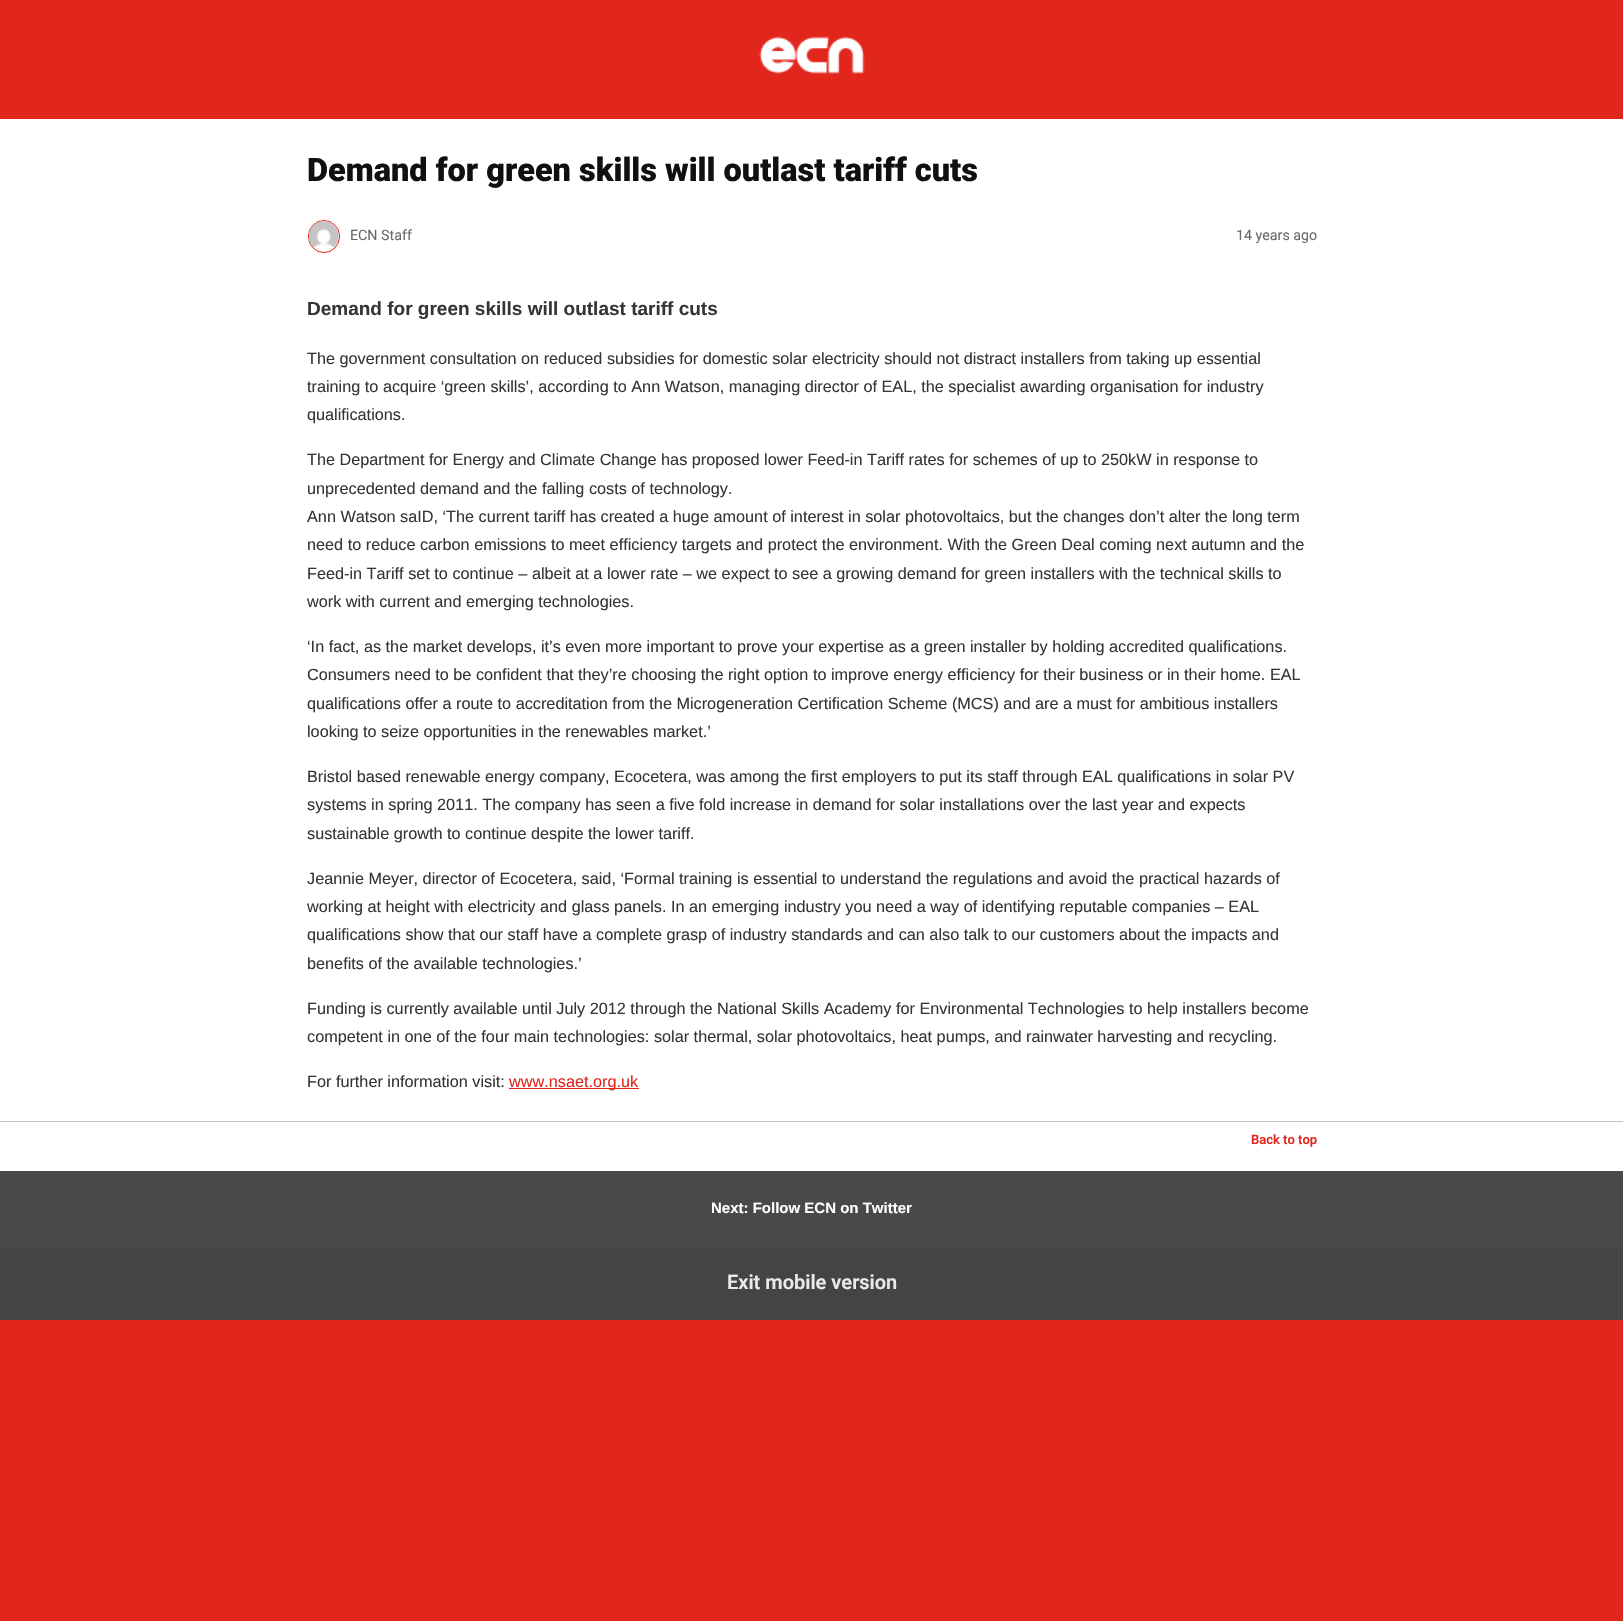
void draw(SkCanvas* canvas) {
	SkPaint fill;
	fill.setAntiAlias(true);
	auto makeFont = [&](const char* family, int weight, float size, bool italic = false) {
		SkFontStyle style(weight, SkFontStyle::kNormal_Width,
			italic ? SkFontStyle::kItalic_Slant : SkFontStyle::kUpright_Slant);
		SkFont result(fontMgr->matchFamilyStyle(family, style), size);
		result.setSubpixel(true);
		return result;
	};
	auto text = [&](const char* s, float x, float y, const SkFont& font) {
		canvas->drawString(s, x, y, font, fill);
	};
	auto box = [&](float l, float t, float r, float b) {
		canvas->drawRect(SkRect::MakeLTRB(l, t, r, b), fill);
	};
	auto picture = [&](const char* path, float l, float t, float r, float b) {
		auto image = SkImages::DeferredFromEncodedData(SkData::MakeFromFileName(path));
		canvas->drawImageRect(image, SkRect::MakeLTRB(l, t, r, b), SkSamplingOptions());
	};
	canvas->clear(0xFFE1261C);
	fill.setColor(0xFFFFFFFF);
	box(0, 119, 1623, 1171);
	picture("image0.png", 759, 36, 865, 74);
	fill.setStyle(SkPaint::kStroke_Style);
	fill.setStrokeWidth(1);
	fill.setColor(0xFFE1261C);
	canvas->drawRoundRect(SkRect::MakeLTRB(308.5f, 220.5f, 339.5f, 252.5f), 15.5f, 15.5f, fill);
	picture("image1.png", 308, 221, 339, 250);
	fill.setStyle(SkPaint::kFill_Style);
	box(509, 1088, 639, 1089);
	fill.setColor(0xFFC2C2C2);
	box(0, 1121, 1623, 1122);
	fill.setColor(0xFF494949);
	box(0, 1171, 1623, 1248);
	fill.setColor(0xFF444444);
	box(0, 1248, 1623, 1320);
	auto font1 = makeFont("Roboto", 900, 32.5f);
	fill.setColor(0xFF101010);
	text("Demand for green skills will outlast tariff cuts", 307, 181, font1);
	auto font2 = makeFont("Roboto", 400, 14.25f);
	fill.setColor(0xFF696969);
	text("ECN Staff", 350, 240, font2);
	text("14 years ago", 1236, 240, font2);
	auto font3 = makeFont("Liberation Sans", 700, 19);
	fill.setColor(0xFF353535);
	text("Demand for green skills will outlast tariff cuts", 307, 315, font3);
	auto font4 = makeFont("Liberation Sans", 400, 16.25f);
	text("The government consultation on reduced subsidies for domestic solar electricity should not distract installers from taking up essential", 307, 364, font4);
	text("training to acquire ‘green skills’, according to Ann Watson, managing director of EAL, the specialist awarding organisation for industry", 307, 392, font4);
	text("qualifications.", 307, 420, font4);
	text("The Department for Energy and Climate Change has proposed lower Feed-in Tariff rates for schemes of up to 250kW in response to", 307, 465, font4);
	text("unprecedented demand and the falling costs of technology.", 307, 494, font4);
	text("Ann Watson saID, ‘The current tariff has created a huge amount of interest in solar photovoltaics, but the changes don’t alter the long term", 307, 522, font4);
	text("need to reduce carbon emissions to meet efficiency targets and protect the environment. With the Green Deal coming next autumn and the", 307, 550, font4);
	text("Feed-in Tariff set to continue – albeit at a lower rate – we expect to see a growing demand for green installers with the technical skills to", 307, 579, font4);
	text("work with current and emerging technologies.", 307, 607, font4);
	text("‘In fact, as the market develops, it’s even more important to prove your expertise as a green installer by holding accredited qualifications.", 307, 652, font4);
	text("Consumers need to be confident that they’re choosing the right option to improve energy efficiency for their business or in their home. EAL", 307, 680, font4);
	text("qualifications offer a route to accreditation from the Microgeneration Certification Scheme (MCS) and are a must for ambitious installers", 307, 709, font4);
	text("looking to seize opportunities in the renewables market.’", 307, 737, font4);
	text("Bristol based renewable energy company, Ecocetera, was among the first employers to put its staff through EAL qualifications in solar PV", 307, 782, font4);
	text("systems in spring 2011. The company has seen a five fold increase in demand for solar installations over the last year and expects", 307, 810, font4);
	text("sustainable growth to continue despite the lower tariff.", 307, 839, font4);
	text("Jeannie Meyer, director of Ecocetera, said, ‘Formal training is essential to understand the regulations and avoid the practical hazards of", 307, 884, font4);
	text("working at height with electricity and glass panels. In an emerging industry you need a way of identifying reputable companies – EAL", 307, 912, font4);
	text("qualifications show that our staff have a complete grasp of industry standards and can also talk to our customers about the impacts and", 307, 940, font4);
	text("benefits of the available technologies.’", 307, 969, font4);
	text("Funding is currently available until July 2012 through the National Skills Academy for Environmental Technologies to help installers become", 307, 1014, font4);
	text("competent in one of the four main technologies: solar thermal, solar photovoltaics, heat pumps, and rainwater harvesting and recycling.", 307, 1042, font4);
	text("For further information visit:", 307, 1087, font4);
	fill.setColor(0xFFE1261C);
	text("www.nsaet.org.uk", 509, 1087, font4);
	auto font5 = makeFont("Roboto", 600, 13);
	text("Back to top", 1251, 1144, font5);
	auto font6 = makeFont("Liberation Sans", 700, 15);
	fill.setColor(0xFFFFFFFF);
	text("Next: Follow ECN on Twitter", 711, 1213, font6);
	auto font7 = makeFont("Roboto", 600, 20);
	fill.setColor(0xFFEAEAEA);
	text("Exit mobile version", 727, 1289, font7);
}
